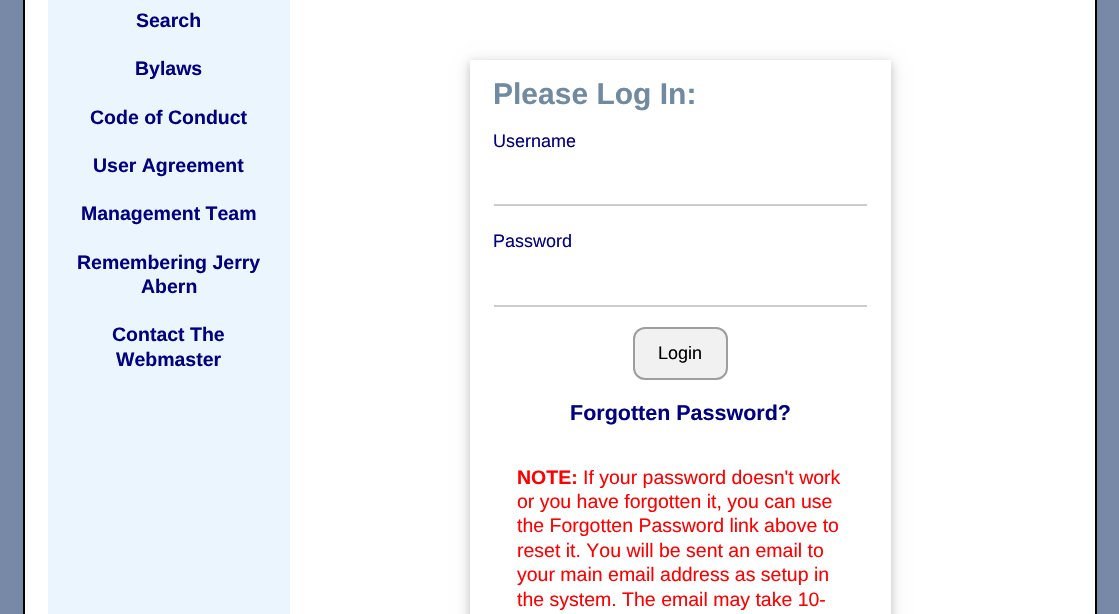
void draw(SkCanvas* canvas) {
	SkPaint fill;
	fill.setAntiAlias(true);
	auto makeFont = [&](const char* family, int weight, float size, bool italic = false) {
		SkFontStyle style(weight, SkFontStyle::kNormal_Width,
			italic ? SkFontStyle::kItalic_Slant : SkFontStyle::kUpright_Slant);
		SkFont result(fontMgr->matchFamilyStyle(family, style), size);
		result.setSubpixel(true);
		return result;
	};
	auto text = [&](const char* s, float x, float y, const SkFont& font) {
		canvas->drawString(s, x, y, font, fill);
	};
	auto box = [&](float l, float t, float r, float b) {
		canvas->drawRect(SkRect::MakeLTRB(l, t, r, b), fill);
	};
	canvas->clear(0xFF7789A6);
	fill.setColor(0xFFFFFFFF);
	canvas->drawRect(SkRect::MakeLTRB(24, -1, 1096, 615), fill);
	fill.setStyle(SkPaint::kStroke_Style);
	fill.setStrokeWidth(2);
	fill.setColor(0xFF000000);
	canvas->drawRect(SkRect::MakeLTRB(24, -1, 1096, 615), fill);
	fill.setStyle(SkPaint::kFill_Style);
	fill.setColor(0xFFEBF5FE);
	box(48, 0, 290, 614);
	canvas->save();
	canvas->clipPath(SkPathBuilder(SkPathFillType::kEvenOdd).moveTo(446, 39).lineTo(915, 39).lineTo(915, 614).lineTo(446, 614).close().moveTo(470, 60).lineTo(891, 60).lineTo(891, 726).lineTo(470, 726).close().detach(), true);
	fill.setColor(0x1F000000);
	fill.setMaskFilter(SkMaskFilter::MakeBlur(kNormal_SkBlurStyle, 7.5f));
	canvas->drawRect(SkRect::MakeLTRB(470, 63, 891, 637), fill);
	fill.setMaskFilter(nullptr);
	canvas->restore();
	canvas->save();
	canvas->clipPath(SkPathBuilder(SkPathFillType::kEvenOdd).moveTo(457, 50).lineTo(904, 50).lineTo(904, 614).lineTo(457, 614).close().moveTo(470, 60).lineTo(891, 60).lineTo(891, 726).lineTo(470, 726).close().detach(), true);
	fill.setColor(0x29000000);
	fill.setMaskFilter(SkMaskFilter::MakeBlur(kNormal_SkBlurStyle, 4));
	canvas->drawRect(SkRect::MakeLTRB(470, 63, 891, 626), fill);
	fill.setMaskFilter(nullptr);
	canvas->restore();
	fill.setColor(0xFFCCCCCC);
	box(494, 204, 867, 206);
	box(494, 305, 867, 307);
	fill.setColor(0xFFF1F1F1);
	canvas->drawRoundRect(SkRect::MakeLTRB(634, 328, 727, 379), 11, 11, fill);
	fill.setStyle(SkPaint::kStroke_Style);
	fill.setColor(0xFF9E9E9E);
	canvas->drawRoundRect(SkRect::MakeLTRB(634, 328, 727, 379), 11, 11, fill);
	auto font1 = makeFont("Liberation Sans", 700, 19.5f);
	fill.setStyle(SkPaint::kFill_Style);
	fill.setColor(0xFF000080);
	text("Search", 136, 27, font1);
	text("Bylaws", 135, 75, font1);
	text("Code of Conduct", 90, 124, font1);
	text("User Agreement", 93, 172, font1);
	text("Management Team", 81, 220, font1);
	text("Remembering Jerry", 77, 269, font1);
	text("Abern", 141, 293, font1);
	text("Contact The", 112, 341, font1);
	text("Webmaster", 116, 366, font1);
	auto font2 = makeFont("Liberation Sans", 700, 30);
	fill.setColor(0xFF708AA2);
	text("Please Log In:", 493, 104, font2);
	auto font3 = makeFont("Liberation Sans", 400, 18);
	fill.setColor(0xFF000080);
	text("Username", 493, 147, font3);
	text("Password", 493, 247, font3);
	fill.setColor(0xFF000000);
	text("Login", 658, 359, font3);
	auto font4 = makeFont("Liberation Sans", 700, 21.5f);
	fill.setColor(0xFF000080);
	text("Forgotten Password?", 570, 420, font4);
	fill.setColor(0xFFFF0000);
	text("NOTE:", 517, 484, font1);
	auto font5 = makeFont("Liberation Sans", 400, 19.5f);
	text("If your password doesn't work", 583, 484, font5);
	text("or you have forgotten it, you can use", 517, 508, font5);
	text("the Forgotten Password link above to", 517, 532, font5);
	text("reset it. You will be sent an email to", 517, 557, font5);
	text("your main email address as setup in", 517, 581, font5);
	text("the system. The email may take 10-", 517, 606, font5);
}
